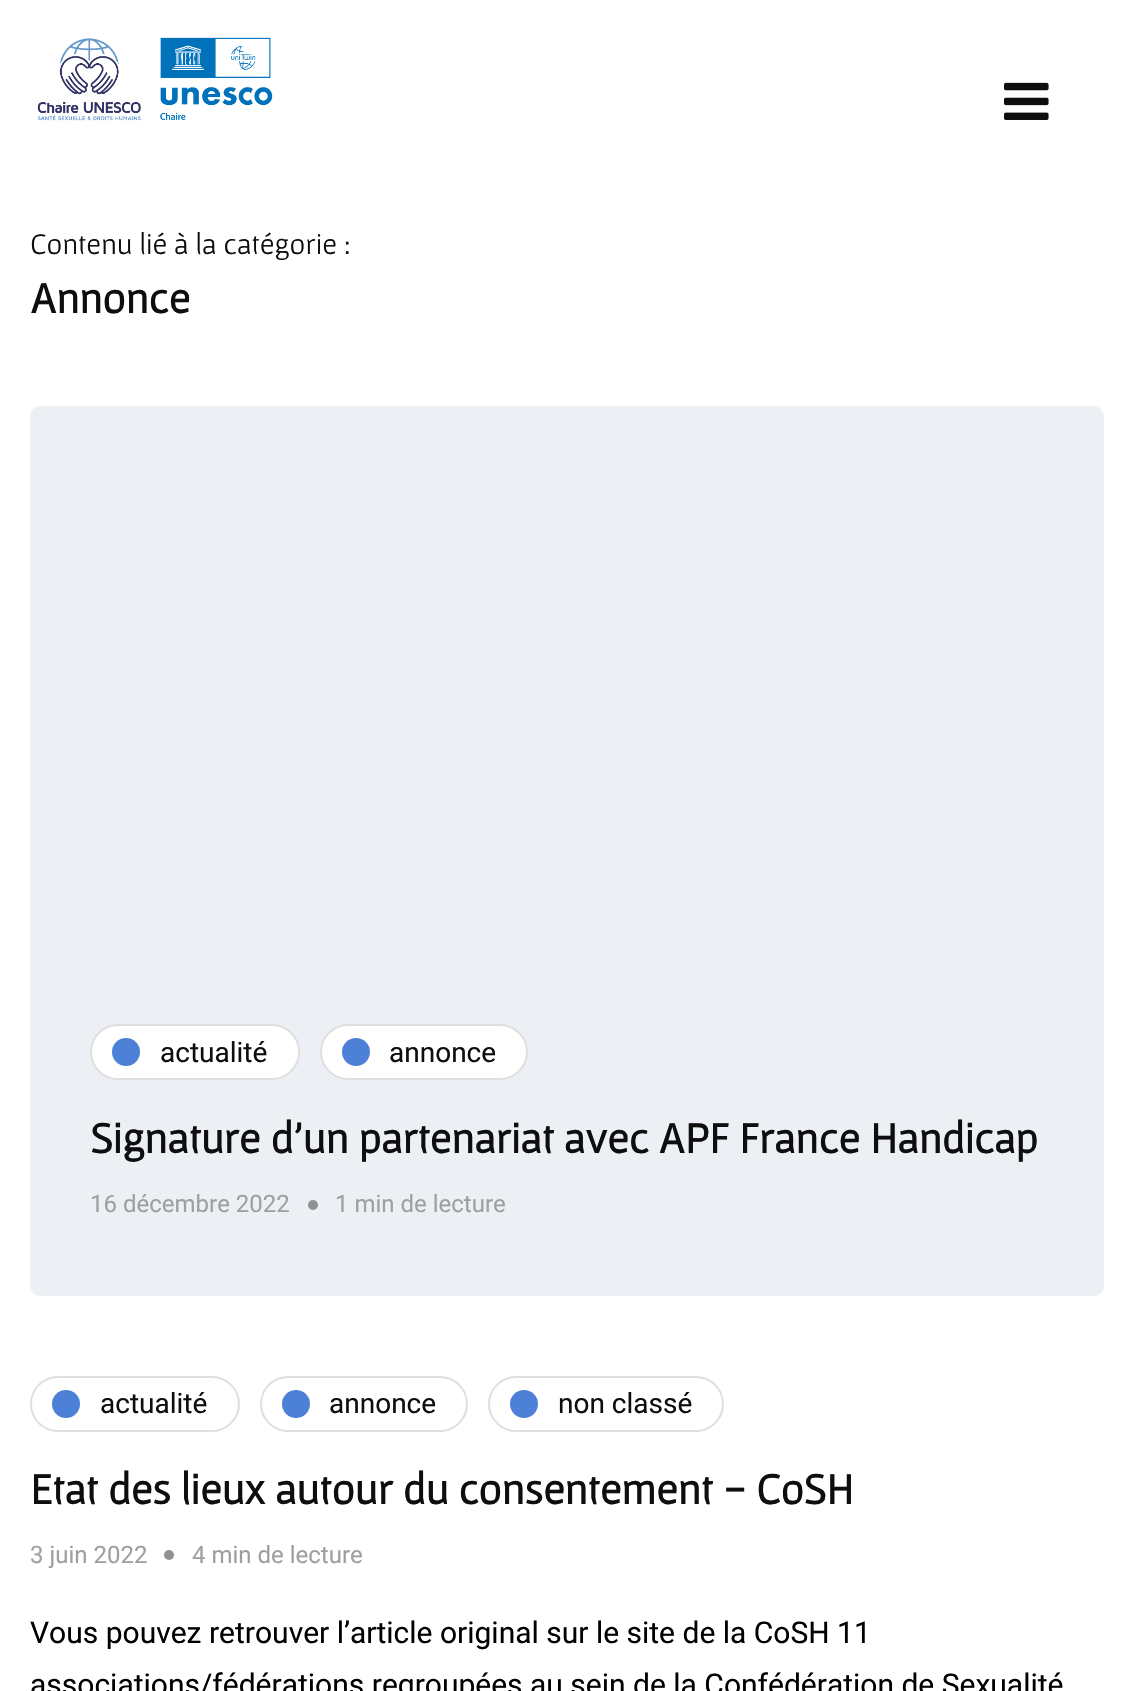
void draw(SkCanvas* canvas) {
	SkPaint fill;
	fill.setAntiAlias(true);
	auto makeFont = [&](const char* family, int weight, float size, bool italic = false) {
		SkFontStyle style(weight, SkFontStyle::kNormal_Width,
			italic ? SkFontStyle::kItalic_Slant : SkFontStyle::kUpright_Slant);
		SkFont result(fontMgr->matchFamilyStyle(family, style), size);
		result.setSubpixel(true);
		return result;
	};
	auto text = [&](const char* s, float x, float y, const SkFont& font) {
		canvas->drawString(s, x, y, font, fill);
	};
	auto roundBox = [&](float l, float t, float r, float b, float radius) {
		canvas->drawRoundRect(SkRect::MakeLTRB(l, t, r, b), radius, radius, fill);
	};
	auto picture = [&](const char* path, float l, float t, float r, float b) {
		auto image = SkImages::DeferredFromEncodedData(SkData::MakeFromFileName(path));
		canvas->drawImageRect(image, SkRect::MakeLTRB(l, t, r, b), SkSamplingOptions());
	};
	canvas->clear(0xFFFFFFFF);
	picture("image0.png", 37, 37, 273, 121);
	picture("image1.png", 1004, 82, 1049, 120);
	fill.setColor(0xFFECF0F5);
	roundBox(30, 406, 1104, 1296, 10);
	fill.setColor(0xFFFFFFFF);
	canvas->drawRoundRect(SkRect::MakeLTRB(91, 1025, 299, 1079), 27, 27, fill);
	fill.setStyle(SkPaint::kStroke_Style);
	fill.setStrokeWidth(2);
	fill.setColor(0xFFE0DEDE);
	canvas->drawRoundRect(SkRect::MakeLTRB(91, 1025, 299, 1079), 27, 27, fill);
	fill.setStyle(SkPaint::kFill_Style);
	fill.setColor(0xFF4D81D7);
	canvas->drawCircle(126, 1052, 14, fill);
	fill.setColor(0xFFFFFFFF);
	canvas->drawRoundRect(SkRect::MakeLTRB(321, 1025, 527, 1079), 27, 27, fill);
	fill.setStyle(SkPaint::kStroke_Style);
	fill.setColor(0xFFE0DEDE);
	canvas->drawRoundRect(SkRect::MakeLTRB(321, 1025, 527, 1079), 27, 27, fill);
	fill.setStyle(SkPaint::kFill_Style);
	fill.setColor(0xFF4D81D7);
	canvas->drawCircle(356, 1052, 14, fill);
	fill.setColor(0xFF909090);
	canvas->drawCircle(313, 1205, 5, fill);
	fill.setStyle(SkPaint::kStroke_Style);
	fill.setColor(0xFFE0DEDE);
	canvas->drawRoundRect(SkRect::MakeLTRB(31, 1377, 239, 1431), 27, 27, fill);
	fill.setStyle(SkPaint::kFill_Style);
	fill.setColor(0xFF4D81D7);
	canvas->drawCircle(66, 1404, 14, fill);
	fill.setStyle(SkPaint::kStroke_Style);
	fill.setColor(0xFFE0DEDE);
	canvas->drawRoundRect(SkRect::MakeLTRB(261, 1377, 467, 1431), 27, 27, fill);
	fill.setStyle(SkPaint::kFill_Style);
	fill.setColor(0xFF4D81D7);
	canvas->drawCircle(296, 1404, 14, fill);
	fill.setStyle(SkPaint::kStroke_Style);
	fill.setColor(0xFFE0DEDE);
	canvas->drawRoundRect(SkRect::MakeLTRB(489, 1377, 723, 1431), 27, 27, fill);
	fill.setStyle(SkPaint::kFill_Style);
	fill.setColor(0xFF4D81D7);
	canvas->drawCircle(524, 1404, 14, fill);
	fill.setColor(0xFF909090);
	canvas->drawCircle(169, 1555, 5, fill);
	auto font1 = makeFont("Gafata", 400, 30);
	fill.setColor(0xFF0F0E0E);
	text("Contenu lié à la catégorie :", 30, 254, font1);
	auto font2 = makeFont("Gafata", 700, 44);
	text("Annonce", 30, 313, font2);
	auto font3 = makeFont("Roboto", 400, 28);
	text("actualité", 160, 1062, font3);
	text("annonce", 389, 1062, font3);
	text("Signature d'un partenariat avec APF France Handicap", 90, 1153, font2);
	auto font4 = makeFont("Roboto", 400, 24);
	fill.setColor(0xFF9F9F9F);
	text("16 décembre 2022", 90, 1212, font4);
	text("1 min de lecture", 335, 1212, font4);
	fill.setColor(0xFF0F0E0E);
	text("actualité", 100, 1413, font3);
	text("annonce", 329, 1413, font3);
	text("non classé", 558, 1413, font3);
	text("Etat des lieux autour du consentement - CoSH", 30, 1504, font2);
	fill.setColor(0xFF9F9F9F);
	text("3 juin 2022", 30, 1563, font4);
	text("4 min de lecture", 192, 1563, font4);
	auto font5 = makeFont("Roboto", 400, 30);
	fill.setColor(0xFF000000);
	text("Vous pouvez retrouver l’article original sur le site de la CoSH 11", 30, 1643, font5);
	text("associations/fédérations regroupées au sein de la Confédération de Sexualité", 30, 1695, font5);
}
